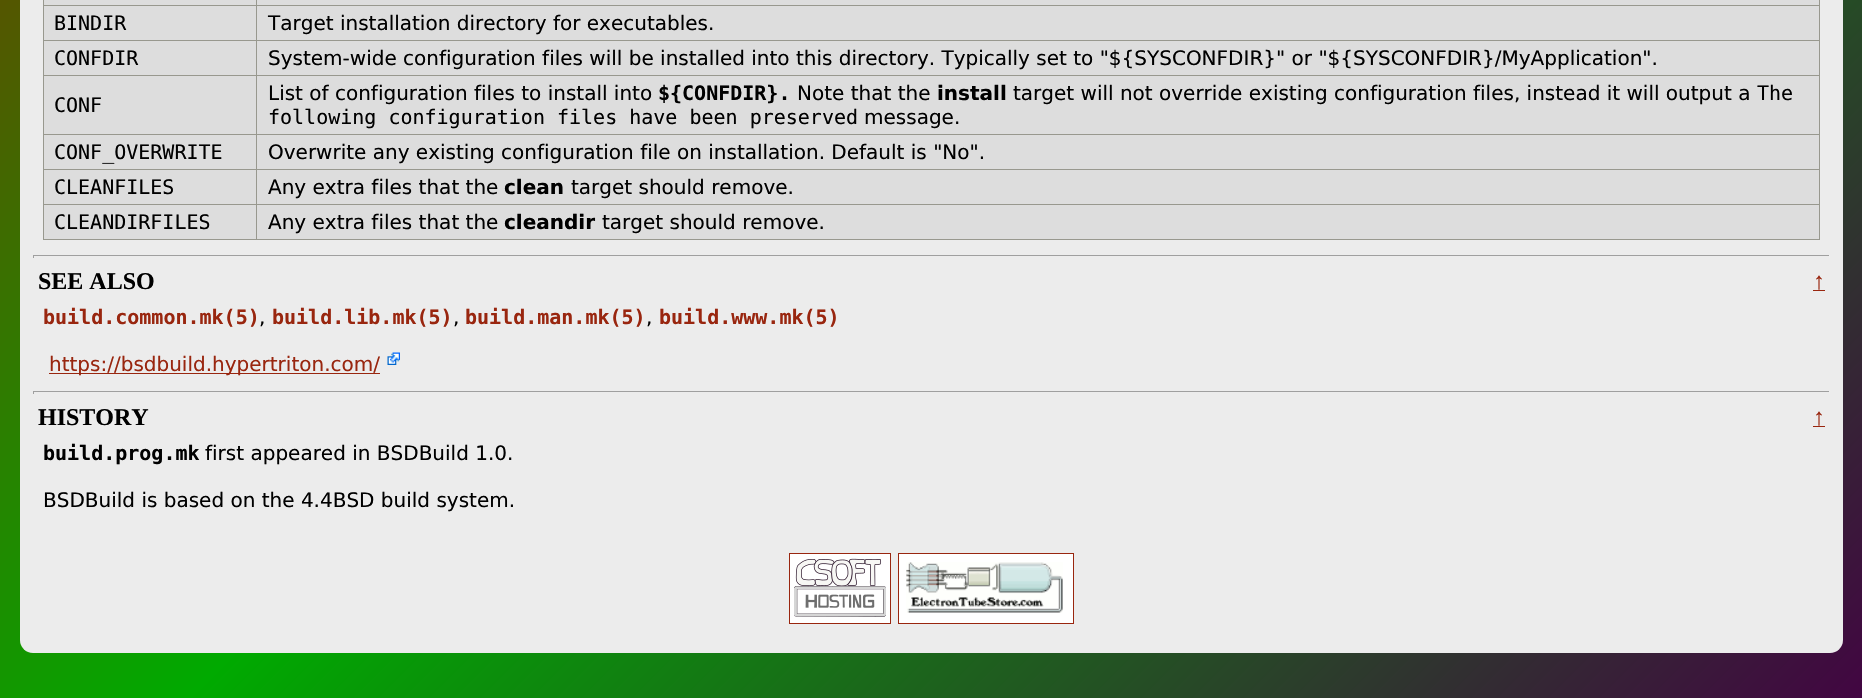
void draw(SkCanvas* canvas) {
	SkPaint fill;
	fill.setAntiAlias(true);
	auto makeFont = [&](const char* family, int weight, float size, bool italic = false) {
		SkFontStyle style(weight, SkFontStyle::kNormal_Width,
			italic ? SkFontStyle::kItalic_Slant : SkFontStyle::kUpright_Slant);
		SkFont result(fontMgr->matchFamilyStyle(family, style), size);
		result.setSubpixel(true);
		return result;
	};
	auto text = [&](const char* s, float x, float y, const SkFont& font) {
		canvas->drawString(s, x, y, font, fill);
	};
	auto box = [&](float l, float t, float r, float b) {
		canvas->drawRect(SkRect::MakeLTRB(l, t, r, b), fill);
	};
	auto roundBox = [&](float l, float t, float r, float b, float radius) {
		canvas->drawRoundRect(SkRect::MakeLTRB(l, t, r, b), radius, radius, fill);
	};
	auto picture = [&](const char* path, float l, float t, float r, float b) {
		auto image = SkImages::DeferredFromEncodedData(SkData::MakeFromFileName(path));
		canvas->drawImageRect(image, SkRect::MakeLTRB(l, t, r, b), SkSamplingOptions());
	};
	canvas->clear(0xFFFFFFFF);
	{
		const SkColor colors[] = {0xFF0000AA, 0xFFAA0000, 0xFF00AA00, 0xFF440044};
		const float stops[] = {0, 0.33f, 0.67f, 1};
		const SkPoint ends[] = {{-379, -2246}, {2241, 374}};
		fill.setShader(SkGradientShader::MakeLinear(ends, colors, stops, 4, SkTileMode::kClamp));
		fill.setAlpha(255);
	}
	box(0, 0, 1862, 698);
	fill.setShader(nullptr);
	fill.setColor(0xFFECECEC);
	roundBox(20, -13, 1843, 653, 13);
	fill.setColor(0xFFDDDDDD);
	box(44, 0, 1819, 239);
	fill.setColor(0xFF98988E);
	box(1819, 0, 1820, 240);
	box(43, 239, 1820, 240);
	box(43, 0, 44, 240);
	box(256, 5, 1820, 6);
	box(256, 40, 1820, 41);
	box(256, 75, 1820, 76);
	box(256, 134, 1820, 135);
	box(256, 169, 1820, 170);
	box(256, 204, 1820, 205);
	box(256, 204, 257, 240);
	box(43, 204, 258, 205);
	box(256, 169, 257, 205);
	box(43, 169, 258, 170);
	box(256, 134, 257, 170);
	box(43, 134, 258, 135);
	box(256, 75, 257, 135);
	box(43, 75, 258, 76);
	box(256, 40, 257, 76);
	box(43, 40, 258, 41);
	box(256, 5, 257, 41);
	box(43, 5, 258, 6);
	box(256, 0, 257, 6);
	fill.setColor(0xFF9F9F9F);
	box(33, 255, 1830, 256);
	fill.setColor(0xFFEEEEEE);
	box(1829, 255, 1830, 258);
	fill.setColor(0xFF9F9F9F);
	box(33, 255, 34, 258);
	fill.setColor(0xFF99260F);
	box(1813, 290, 1825, 291);
	box(49, 373, 380, 374);
	picture("image0.png", 387, 352, 400, 365);
	fill.setColor(0xFF9F9F9F);
	box(33, 391, 1830, 392);
	fill.setColor(0xFFEEEEEE);
	box(1829, 391, 1830, 394);
	fill.setColor(0xFF9F9F9F);
	box(33, 391, 34, 394);
	fill.setColor(0xFF99260F);
	box(1813, 426, 1825, 427);
	fill.setColor(0xFFFFFFFF);
	canvas->drawRect(SkRect::MakeLTRB(789.5f, 553.5f, 890.5f, 623.5f), fill);
	fill.setStyle(SkPaint::kStroke_Style);
	fill.setStrokeWidth(1);
	fill.setColor(0xFF99260F);
	canvas->drawRect(SkRect::MakeLTRB(789.5f, 553.5f, 890.5f, 623.5f), fill);
	fill.setStyle(SkPaint::kFill_Style);
	fill.setColor(0xFFFFFFFF);
	canvas->drawRect(SkRect::MakeLTRB(898.5f, 553.5f, 1073.5f, 623.5f), fill);
	fill.setStyle(SkPaint::kStroke_Style);
	fill.setColor(0xFF99260F);
	canvas->drawRect(SkRect::MakeLTRB(898.5f, 553.5f, 1073.5f, 623.5f), fill);
	picture("image1.png", 794, 558, 886, 617);
	picture("image2.png", 906, 562, 1063, 613);
	auto font1 = makeFont("DejaVu Sans Mono", 400, 20);
	fill.setStyle(SkPaint::kFill_Style);
	fill.setColor(0xFF000000);
	text("BINDIR", 54, 30, font1);
	auto font2 = makeFont("DejaVu Sans", 400, 20);
	text("Target installation directory for executables.", 268, 30, font2);
	text("CONFDIR", 54, 65, font1);
	text("System-wide configuration files will be installed into this directory. Typically set to \"${SYSCONFDIR}\" or \"${SYSCONFDIR}/MyApplication\".", 268, 65, font2);
	text("CONF", 54, 112, font1);
	text("List of configuration files to install into", 268, 100, font2);
	auto font3 = makeFont("DejaVu Sans Mono", 700, 20);
	text("${CONFDIR}.", 658, 100, font3);
	text("Note that the", 797, 100, font2);
	auto font4 = makeFont("DejaVu Sans", 700, 20);
	text("install", 937, 100, font4);
	text("target will not override existing configuration files, instead it will output a", 1013, 100, font2);
	text("The", 1757, 100, font1);
	text("following configuration files have been preserved", 268, 124, font1);
	text("message.", 864, 124, font2);
	text("CONF_OVERWRITE", 54, 159, font1);
	text("Overwrite any existing configuration file on installation. Default is \"No\".", 268, 159, font2);
	text("CLEANFILES", 54, 194, font1);
	text("Any extra files that the", 268, 194, font2);
	text("clean", 504, 194, font4);
	text("target should remove.", 571, 194, font2);
	text("CLEANDIRFILES", 54, 229, font1);
	text("Any extra files that the", 268, 229, font2);
	text("cleandir", 504, 229, font4);
	text("target should remove.", 602, 229, font2);
	auto font5 = makeFont("Liberation Serif", 700, 24);
	text("SEE ALSO", 38, 289, font5);
	fill.setColor(0xFF99260F);
	text("↑", 1813, 289, font5);
	text("build.common.mk(5)", 43, 324, font3);
	fill.setColor(0xFF000000);
	text(",", 259, 324, font2);
	fill.setColor(0xFF99260F);
	text("build.lib.mk(5)", 272, 324, font3);
	fill.setColor(0xFF000000);
	text(",", 453, 324, font2);
	fill.setColor(0xFF99260F);
	text("build.man.mk(5)", 465, 324, font3);
	fill.setColor(0xFF000000);
	text(",", 646, 324, font2);
	fill.setColor(0xFF99260F);
	text("build.www.mk(5)", 659, 324, font3);
	text("https://bsdbuild.hypertriton.com/", 49, 371, font2);
	fill.setColor(0xFF000000);
	text("HISTORY", 38, 425, font5);
	fill.setColor(0xFF99260F);
	text("↑", 1813, 425, font5);
	fill.setColor(0xFF000000);
	text("build.prog.mk", 43, 460, font3);
	text("first appeared in BSDBuild 1.0.", 205, 460, font2);
	text("BSDBuild is based on the 4.4BSD build system.", 43, 507, font2);
}
